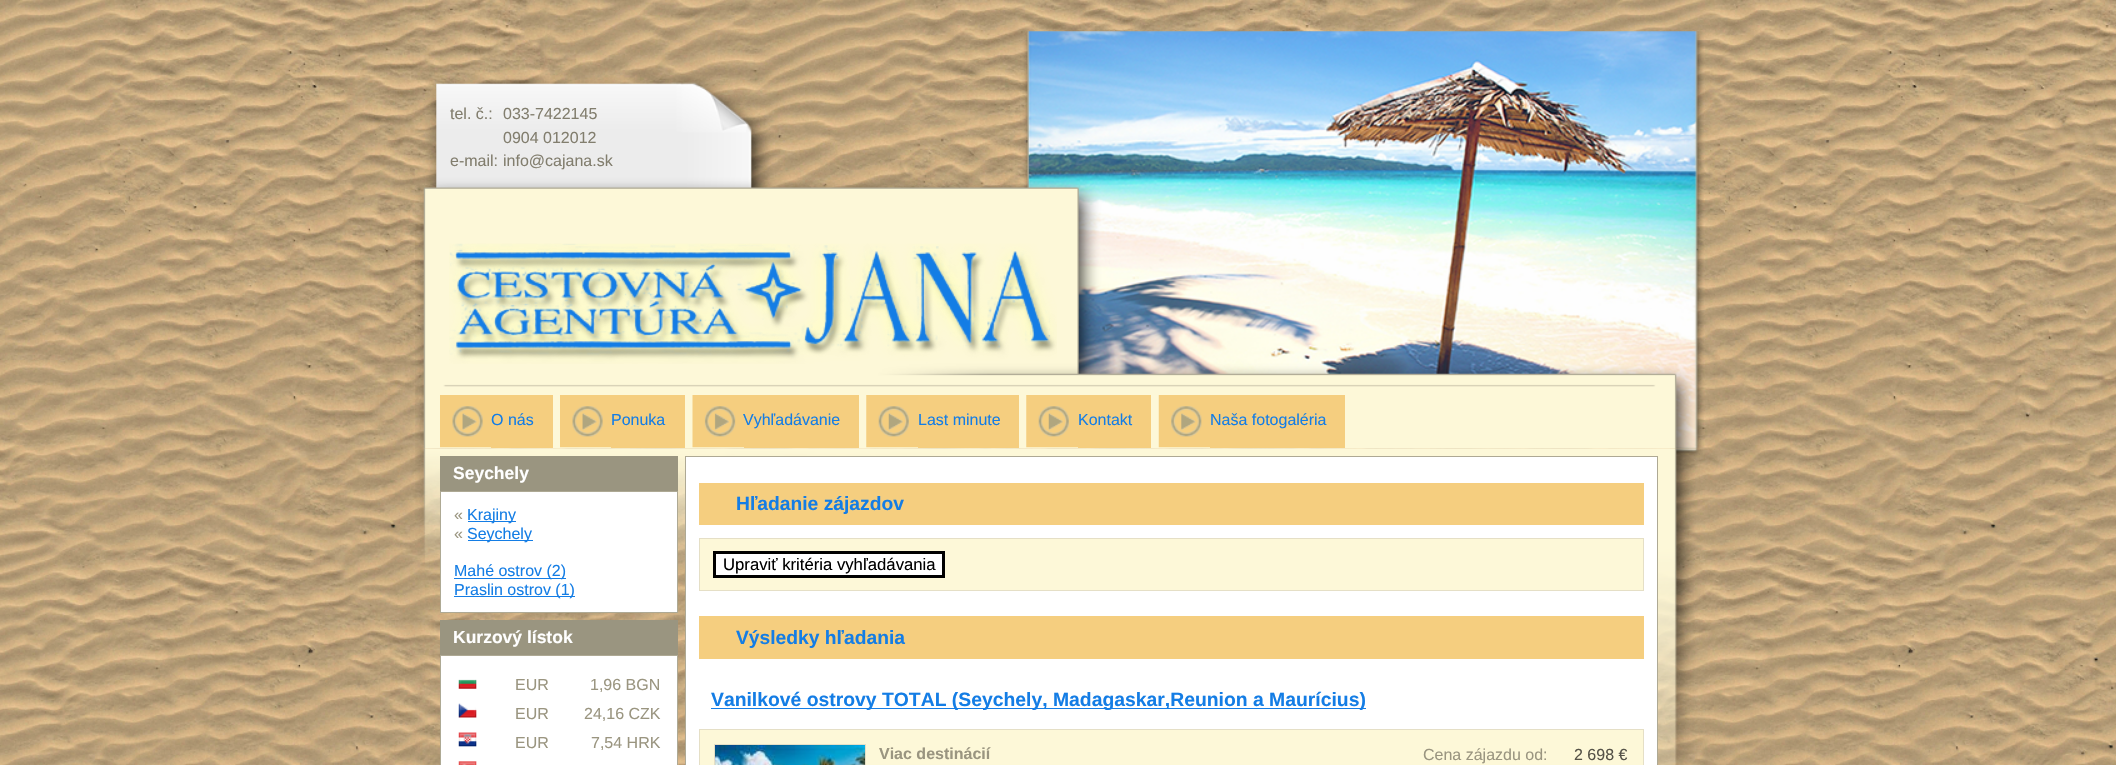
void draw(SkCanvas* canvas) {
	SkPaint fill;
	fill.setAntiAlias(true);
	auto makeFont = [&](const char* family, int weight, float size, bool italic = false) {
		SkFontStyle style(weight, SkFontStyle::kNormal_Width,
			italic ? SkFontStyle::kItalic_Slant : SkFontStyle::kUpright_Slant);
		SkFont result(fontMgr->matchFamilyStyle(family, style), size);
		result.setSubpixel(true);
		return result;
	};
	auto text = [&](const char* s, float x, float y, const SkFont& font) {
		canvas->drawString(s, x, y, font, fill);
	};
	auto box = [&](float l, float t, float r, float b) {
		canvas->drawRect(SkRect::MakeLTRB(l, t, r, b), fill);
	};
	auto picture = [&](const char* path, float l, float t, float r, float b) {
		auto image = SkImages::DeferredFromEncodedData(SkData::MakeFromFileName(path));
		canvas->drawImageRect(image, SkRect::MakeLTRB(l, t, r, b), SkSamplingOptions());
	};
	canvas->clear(0xFFFFFFFF);
	picture("image0.png", 0, 0, 2116, 765);
	picture("image1.png", 415, 31, 1704, 449);
	picture("image2.png", 449, 243, 1057, 364);
	picture("image3.png", 440, 395, 491, 448);
	fill.setColor(0xFFF5CE7F);
	box(491, 395, 553, 448);
	picture("image3.png", 560, 395, 611, 448);
	box(611, 395, 685, 448);
	picture("image4.png", 692, 395, 744, 448);
	box(744, 395, 859, 448);
	picture("image5.png", 866, 395, 918, 448);
	box(918, 395, 1019, 448);
	picture("image5.png", 1026, 395, 1078, 448);
	box(1078, 395, 1151, 448);
	picture("image6.png", 1158, 395, 1210, 448);
	box(1210, 395, 1345, 448);
	picture("image7.png", 415, 448, 1703, 765);
	fill.setColor(0xFF9A9580);
	box(440, 456, 678, 491);
	fill.setColor(0xFFFFFFFF);
	canvas->drawRect(SkRect::MakeLTRB(440.5f, 491.5f, 677.5f, 612.5f), fill);
	fill.setStyle(SkPaint::kStroke_Style);
	fill.setStrokeWidth(1);
	fill.setColor(0xFFAEA994);
	canvas->drawRect(SkRect::MakeLTRB(440.5f, 491.5f, 677.5f, 612.5f), fill);
	fill.setStyle(SkPaint::kFill_Style);
	fill.setColor(0xFF147DE5);
	box(468, 521, 516, 522);
	box(468, 540, 533, 541);
	box(454, 578, 566, 579);
	box(454, 596, 575, 597);
	fill.setColor(0xFF9A9580);
	box(440, 620, 678, 655);
	fill.setColor(0xFFFFFFFF);
	canvas->drawRect(SkRect::MakeLTRB(440.5f, 655.5f, 677.5f, 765.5f), fill);
	fill.setStyle(SkPaint::kStroke_Style);
	fill.setColor(0xFFAEA994);
	canvas->drawRect(SkRect::MakeLTRB(440.5f, 655.5f, 677.5f, 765.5f), fill);
	picture("image8.png", 458, 679, 477, 689);
	picture("image9.png", 458, 703, 477, 718);
	picture("image10.png", 458, 732, 477, 747);
	picture("image11.png", 458, 761, 477, 765);
	fill.setStyle(SkPaint::kFill_Style);
	fill.setColor(0xFFFFFFFF);
	canvas->drawRect(SkRect::MakeLTRB(685.5f, 456.5f, 1657.5f, 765.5f), fill);
	fill.setStyle(SkPaint::kStroke_Style);
	fill.setColor(0xFFAEA994);
	canvas->drawRect(SkRect::MakeLTRB(685.5f, 456.5f, 1657.5f, 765.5f), fill);
	fill.setStyle(SkPaint::kFill_Style);
	fill.setColor(0xFFF5CE7F);
	box(699, 483, 1644, 525);
	fill.setColor(0xFFFDF8D8);
	canvas->drawRect(SkRect::MakeLTRB(699.5f, 538.5f, 1643.5f, 590.5f), fill);
	fill.setStyle(SkPaint::kStroke_Style);
	fill.setColor(0xFFE5DFC6);
	canvas->drawRect(SkRect::MakeLTRB(699.5f, 538.5f, 1643.5f, 590.5f), fill);
	fill.setStyle(SkPaint::kFill_Style);
	fill.setColor(0xFFFFFFFF);
	canvas->drawRect(SkRect::MakeLTRB(714.5f, 552.5f, 943.5f, 576.5f), fill);
	fill.setStyle(SkPaint::kStroke_Style);
	fill.setStrokeWidth(3);
	fill.setColor(0xFF000000);
	canvas->drawRect(SkRect::MakeLTRB(714.5f, 552.5f, 943.5f, 576.5f), fill);
	fill.setStyle(SkPaint::kFill_Style);
	fill.setColor(0xFFF5CE7F);
	box(699, 616, 1644, 659);
	fill.setColor(0xFF147DE5);
	box(711, 708, 1366, 709);
	fill.setColor(0xFFFDF8D8);
	canvas->drawRect(SkRect::MakeLTRB(699.5f, 729.5f, 1643.5f, 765.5f), fill);
	fill.setStyle(SkPaint::kStroke_Style);
	fill.setStrokeWidth(1);
	fill.setColor(0xFFE5DFC6);
	canvas->drawRect(SkRect::MakeLTRB(699.5f, 729.5f, 1643.5f, 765.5f), fill);
	canvas->drawRect(SkRect::MakeLTRB(714.5f, 744.5f, 865.5f, 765.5f), fill);
	picture("image12.png", 715, 745, 865, 765);
	auto font1 = makeFont("Liberation Sans", 400, 16);
	fill.setStyle(SkPaint::kFill_Style);
	fill.setColor(0xFF827E6E);
	text("tel. č.:", 450, 119, font1);
	text("033-7422145", 503, 119, font1);
	text("0904 012012", 503, 143, font1);
	text("e-mail:", 450, 166, font1);
	text("info@cajana.sk", 503, 166, font1);
	fill.setColor(0xFF147DE5);
	text("O nás", 491, 425, font1);
	text("Ponuka", 611, 425, font1);
	text("Vyhľadávanie", 743, 425, font1);
	text("Last minute", 918, 425, font1);
	text("Kontakt", 1078, 425, font1);
	text("Naša fotogaléria", 1210, 425, font1);
	auto font2 = makeFont("Liberation Sans", 700, 17.5f);
	fill.setColor(0xFFFFFFFF);
	text("Seychely", 453, 479, font2);
	fill.setColor(0xFF9A9580);
	text("«", 454, 520, font1);
	fill.setColor(0xFF147DE5);
	text("Krajiny", 467, 520, font1);
	fill.setColor(0xFF9A9580);
	text("«", 454, 539, font1);
	fill.setColor(0xFF147DE5);
	text("Seychely", 467, 539, font1);
	text("Mahé ostrov (2)", 454, 576, font1);
	text("Praslin ostrov (1)", 454, 595, font1);
	fill.setColor(0xFFFFFFFF);
	text("Kurzový lístok", 453, 643, font2);
	fill.setColor(0xFF9A9580);
	text("EUR", 515, 690, font1);
	text("1,96 BGN", 590, 690, font1);
	text("EUR", 515, 719, font1);
	text("24,16 CZK", 584, 719, font1);
	text("EUR", 515, 748, font1);
	text("7,54 HRK", 591, 748, font1);
	auto font3 = makeFont("Liberation Sans", 700, 19.25f);
	fill.setColor(0xFF147DE5);
	text("Hľadanie zájazdov", 736, 510, font3);
	auto font4 = makeFont("Liberation Sans", 400, 16.7f);
	fill.setColor(0xFF000000);
	text("Upraviť kritéria vyhľadávania", 723, 570, font4);
	fill.setColor(0xFF147DE5);
	text("Výsledky hľadania", 736, 644, font3);
	auto font5 = makeFont("Liberation Sans", 700, 19.35f);
	text("Vanilkové ostrovy TOTAL (Seychely, Madagaskar,Reunion a Maurícius)", 711, 706, font5);
	auto font6 = makeFont("Liberation Sans", 700, 16);
	fill.setColor(0xFF9A9580);
	text("Viac destinácií", 879, 759, font6);
	text("Cena zájazdu od:", 1423, 760, font1);
	fill.setColor(0xFF555247);
	text("2 698 €", 1574, 760, font1);
}
